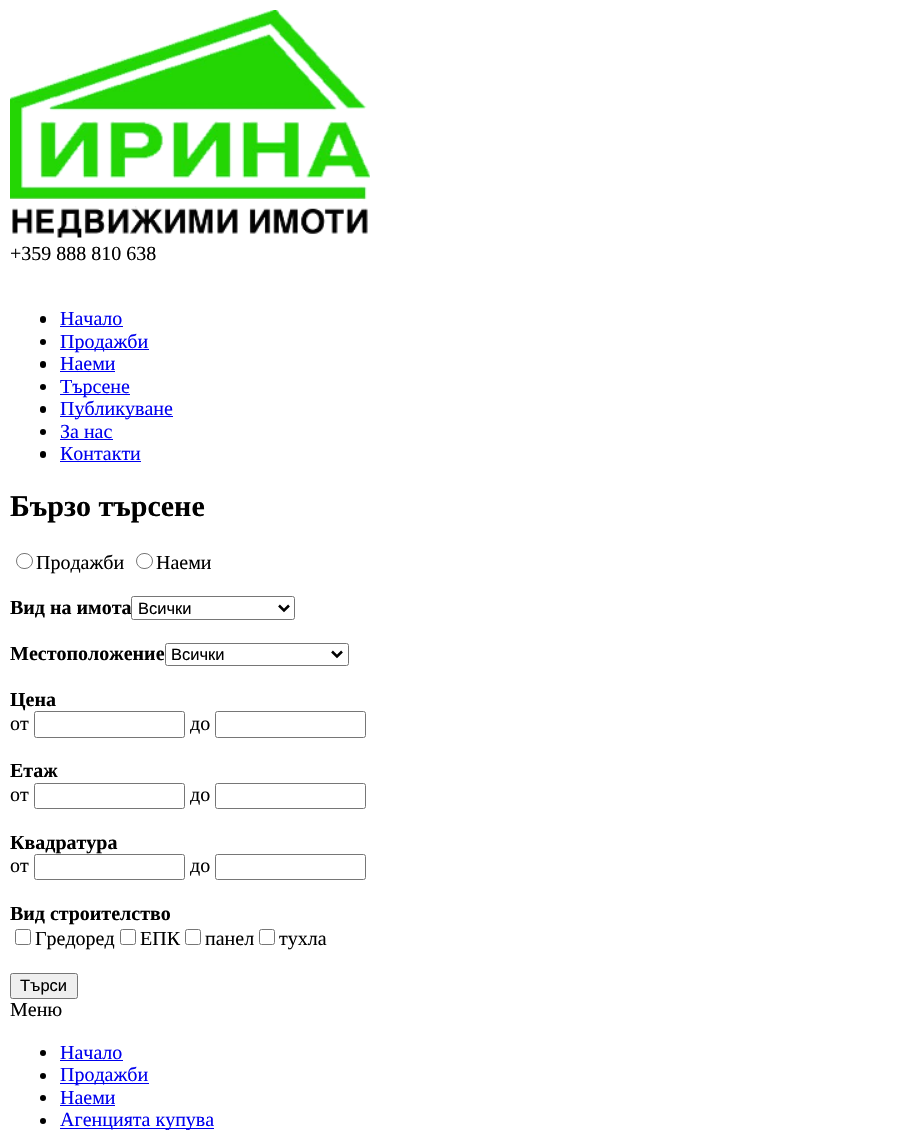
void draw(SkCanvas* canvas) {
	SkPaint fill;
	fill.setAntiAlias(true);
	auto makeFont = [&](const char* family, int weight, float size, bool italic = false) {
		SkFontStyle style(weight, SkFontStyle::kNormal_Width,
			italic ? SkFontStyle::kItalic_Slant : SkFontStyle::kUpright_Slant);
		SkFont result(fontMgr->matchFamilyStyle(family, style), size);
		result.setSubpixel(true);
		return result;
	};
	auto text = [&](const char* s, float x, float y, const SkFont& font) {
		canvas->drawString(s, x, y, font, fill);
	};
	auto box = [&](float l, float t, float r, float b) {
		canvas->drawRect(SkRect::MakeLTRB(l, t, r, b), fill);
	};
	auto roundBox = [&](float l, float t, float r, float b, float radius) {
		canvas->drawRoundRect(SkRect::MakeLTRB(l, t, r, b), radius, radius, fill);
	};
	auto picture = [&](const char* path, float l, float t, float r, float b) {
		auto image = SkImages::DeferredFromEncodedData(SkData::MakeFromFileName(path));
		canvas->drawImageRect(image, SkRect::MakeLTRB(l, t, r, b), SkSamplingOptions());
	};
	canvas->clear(0xFFFFFFFF);
	picture("image0.png", 10, 10, 370, 238);
	fill.setColor(0xFF000000);
	roundBox(40, 316, 46, 323, 3);
	fill.setColor(0xFF0000EE);
	box(60, 326, 123, 327);
	fill.setColor(0xFF000000);
	canvas->drawCircle(43, 342, 3, fill);
	fill.setColor(0xFF0000EE);
	box(60, 349, 149, 350);
	fill.setColor(0xFF000000);
	roundBox(40, 361, 46, 368, 3);
	fill.setColor(0xFF0000EE);
	box(60, 371, 115, 372);
	fill.setColor(0xFF000000);
	canvas->drawCircle(43, 387, 3, fill);
	fill.setColor(0xFF0000EE);
	box(60, 394, 130, 395);
	fill.setColor(0xFF000000);
	roundBox(40, 406, 46, 413, 3);
	fill.setColor(0xFF0000EE);
	box(60, 416, 173, 417);
	fill.setColor(0xFF000000);
	canvas->drawCircle(43, 432, 3, fill);
	fill.setColor(0xFF0000EE);
	box(60, 439, 113, 440);
	fill.setColor(0xFF000000);
	roundBox(40, 451, 46, 458, 3);
	fill.setColor(0xFF0000EE);
	box(60, 461, 141, 462);
	fill.setStyle(SkPaint::kStroke_Style);
	fill.setStrokeWidth(1);
	fill.setColor(0xFF767676);
	canvas->drawRoundRect(SkRect::MakeLTRB(16.5f, 553.5f, 32.5f, 568.5f), 7.5f, 7.5f, fill);
	canvas->drawRoundRect(SkRect::MakeLTRB(136.5f, 553.5f, 152.5f, 568.5f), 7.5f, 7.5f, fill);
	canvas->drawRoundRect(SkRect::MakeLTRB(165.5f, 643.5f, 348.5f, 665.5f), 2, 2, fill);
	fill.setStrokeWidth(2.5f);
	fill.setColor(0xFF000000);
	canvas->drawPath(SkPathBuilder().moveTo(332, 651.5f).lineTo(337, 656.5f).lineTo(342, 651.5f).detach(), fill);
	fill.setStrokeWidth(1);
	fill.setColor(0xFF767676);
	canvas->drawRoundRect(SkRect::MakeLTRB(34.5f, 711.5f, 184.5f, 737.5f), 2, 2, fill);
	canvas->drawRoundRect(SkRect::MakeLTRB(215.5f, 711.5f, 365.5f, 737.5f), 2, 2, fill);
	canvas->drawRoundRect(SkRect::MakeLTRB(34.5f, 783.5f, 184.5f, 808.5f), 2, 2, fill);
	canvas->drawRoundRect(SkRect::MakeLTRB(215.5f, 783.5f, 365.5f, 808.5f), 2, 2, fill);
	canvas->drawRoundRect(SkRect::MakeLTRB(34.5f, 854.5f, 184.5f, 879.5f), 2, 2, fill);
	canvas->drawRoundRect(SkRect::MakeLTRB(215.5f, 854.5f, 365.5f, 879.5f), 2, 2, fill);
	canvas->drawRoundRect(SkRect::MakeLTRB(15.5f, 929.5f, 30.5f, 944.5f), 2, 2, fill);
	canvas->drawRoundRect(SkRect::MakeLTRB(120.5f, 929.5f, 135.5f, 944.5f), 2, 2, fill);
	canvas->drawRoundRect(SkRect::MakeLTRB(185.5f, 929.5f, 200.5f, 944.5f), 2, 2, fill);
	canvas->drawRoundRect(SkRect::MakeLTRB(259.5f, 929.5f, 274.5f, 944.5f), 2, 2, fill);
	fill.setStyle(SkPaint::kFill_Style);
	fill.setColor(0xFFEFEFEF);
	canvas->drawRoundRect(SkRect::MakeLTRB(10.5f, 973.5f, 77.5f, 998.5f), 2, 2, fill);
	fill.setStyle(SkPaint::kStroke_Style);
	fill.setColor(0xFF767676);
	canvas->drawRoundRect(SkRect::MakeLTRB(10.5f, 973.5f, 77.5f, 998.5f), 2, 2, fill);
	fill.setStyle(SkPaint::kFill_Style);
	fill.setColor(0xFF000000);
	canvas->drawCircle(43, 1053, 3, fill);
	fill.setColor(0xFF0000EE);
	box(60, 1060, 123, 1061);
	fill.setColor(0xFF000000);
	canvas->drawCircle(43, 1076, 3, fill);
	fill.setColor(0xFF0000EE);
	box(60, 1083, 149, 1084);
	fill.setColor(0xFF000000);
	canvas->drawCircle(43, 1098, 3, fill);
	fill.setColor(0xFF0000EE);
	box(60, 1105, 115, 1106);
	fill.setColor(0xFF000000);
	canvas->drawCircle(43, 1121, 3, fill);
	fill.setColor(0xFF0000EE);
	box(60, 1128, 214, 1129);
	auto font1 = makeFont("Liberation Serif", 400, 20);
	fill.setColor(0xFF000000);
	text("+359 888 810 638", 10, 260, font1);
	fill.setColor(0xFF0000EE);
	text("Начало", 60, 325, font1);
	text("Продажби", 60, 348, font1);
	text("Наеми", 60, 370, font1);
	text("Търсене", 60, 393, font1);
	text("Публикуване", 60, 415, font1);
	text("За нас", 60, 438, font1);
	text("Контакти", 60, 460, font1);
	auto font2 = makeFont("Liberation Serif", 700, 30);
	fill.setColor(0xFF000000);
	text("Бързо търсене", 10, 516, font2);
	text("Продажби", 36, 569, font1);
	text("Наеми", 156, 569, font1);
	auto font3 = makeFont("Liberation Serif", 700, 20);
	text("Вид на имота", 10, 614, font3);
	fill.setColor(0xFFFFFFFF);
	canvas->drawRoundRect(SkRect::MakeLTRB(131.5f, 596.5f, 294.5f, 619.5f), 2, 2, fill);
	fill.setStyle(SkPaint::kStroke_Style);
	fill.setColor(0xFF767676);
	canvas->drawRoundRect(SkRect::MakeLTRB(131.5f, 596.5f, 294.5f, 619.5f), 2, 2, fill);
	fill.setStrokeWidth(2.5f);
	fill.setColor(0xFF000000);
	canvas->drawPath(SkPathBuilder().moveTo(279, 605.5f).lineTo(284, 610.5f).lineTo(289, 605.5f).detach(), fill);
	auto font4 = makeFont("Liberation Sans", 400, 16.5f);
	fill.setStyle(SkPaint::kFill_Style);
	text("Всички", 138, 614, font4);
	text("Местоположение", 10, 660, font3);
	text("Всички", 171, 660, font4);
	text("Цена", 10, 706, font3);
	text("от", 10, 730, font1);
	text("до", 190, 730, font1);
	text("Етаж", 10, 777, font3);
	text("от", 10, 801, font1);
	text("до", 190, 801, font1);
	text("Квадратура", 10, 849, font3);
	text("от", 10, 872, font1);
	text("до", 190, 872, font1);
	text("Вид строителство", 10, 920, font3);
	text("Гредоред", 35, 945, font1);
	text("ЕПК", 140, 945, font1);
	text("панел", 205, 945, font1);
	text("тухла", 279, 945, font1);
	text("Търси", 20, 991, font4);
	text("Меню", 10, 1016, font1);
	fill.setColor(0xFF0000EE);
	text("Начало", 60, 1059, font1);
	text("Продажби", 60, 1081, font1);
	text("Наеми", 60, 1104, font1);
	text("Агенцията купува", 60, 1126, font1);
}
